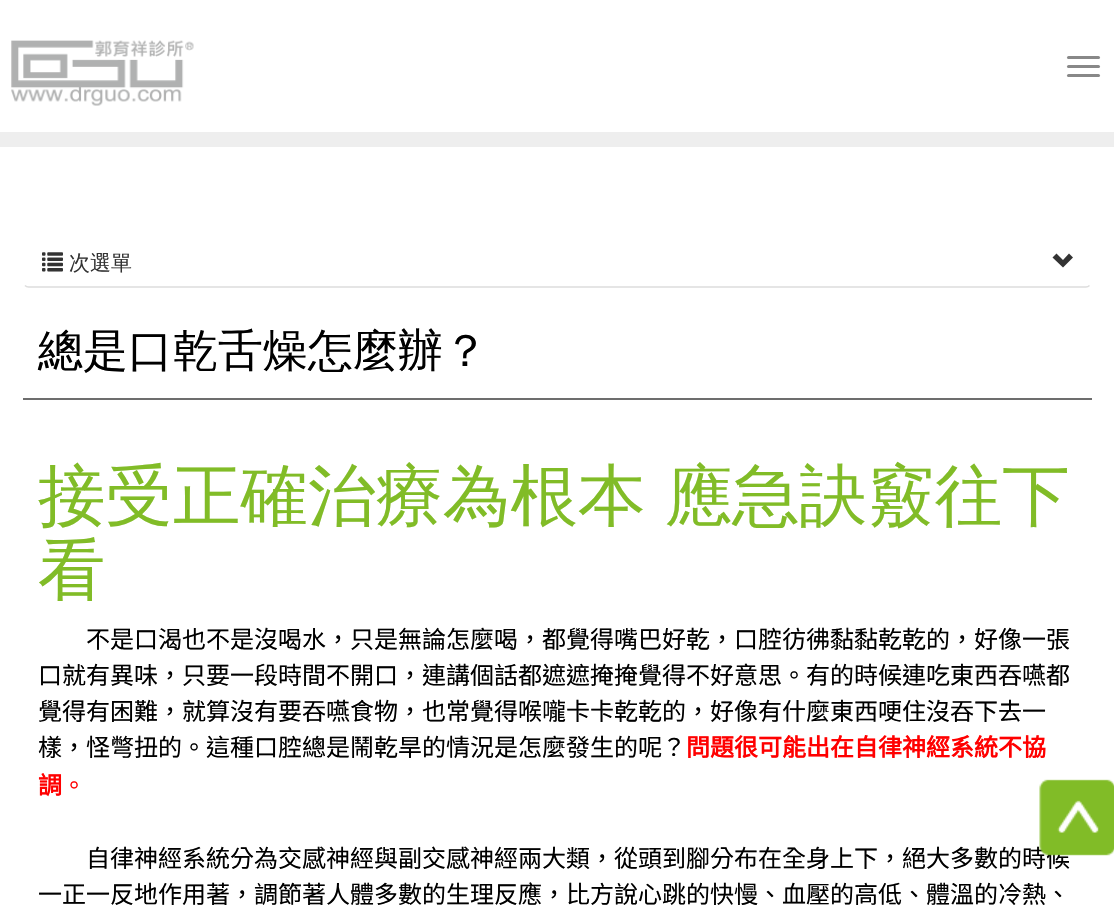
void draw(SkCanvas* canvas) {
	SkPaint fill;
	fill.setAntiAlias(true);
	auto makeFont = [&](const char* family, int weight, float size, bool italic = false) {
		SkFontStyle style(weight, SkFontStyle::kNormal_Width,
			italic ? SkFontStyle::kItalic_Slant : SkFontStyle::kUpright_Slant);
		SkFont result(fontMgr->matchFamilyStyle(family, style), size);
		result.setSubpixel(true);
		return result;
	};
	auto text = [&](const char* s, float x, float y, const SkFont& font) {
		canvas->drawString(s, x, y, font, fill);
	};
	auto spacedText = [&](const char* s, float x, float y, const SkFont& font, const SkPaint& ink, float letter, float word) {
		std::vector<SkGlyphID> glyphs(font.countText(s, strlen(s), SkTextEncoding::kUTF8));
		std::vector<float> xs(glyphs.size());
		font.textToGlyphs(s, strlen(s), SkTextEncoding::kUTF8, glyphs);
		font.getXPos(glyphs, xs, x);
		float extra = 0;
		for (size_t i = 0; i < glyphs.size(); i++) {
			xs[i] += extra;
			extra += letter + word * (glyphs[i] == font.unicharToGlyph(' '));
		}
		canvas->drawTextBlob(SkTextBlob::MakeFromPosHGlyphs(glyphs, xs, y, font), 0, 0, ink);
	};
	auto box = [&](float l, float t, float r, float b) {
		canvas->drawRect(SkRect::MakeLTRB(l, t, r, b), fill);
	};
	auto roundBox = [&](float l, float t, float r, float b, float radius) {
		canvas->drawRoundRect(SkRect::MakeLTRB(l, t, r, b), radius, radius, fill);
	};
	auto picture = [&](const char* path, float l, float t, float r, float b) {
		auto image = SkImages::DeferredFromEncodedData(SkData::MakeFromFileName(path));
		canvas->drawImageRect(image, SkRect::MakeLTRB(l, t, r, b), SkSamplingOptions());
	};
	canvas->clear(0xFFFFFFFF);
	picture("image0.png", 11, 40, 194, 106);
	fill.setColor(0xFF888888);
	roundBox(1067, 56, 1100, 59, 1.5f);
	roundBox(1067, 65, 1100, 68, 1.5f);
	roundBox(1067, 74, 1100, 77, 1.5f);
	fill.setColor(0xFFEEEEEE);
	box(0, 132, 1114, 147);
	fill.setStyle(SkPaint::kStroke_Style);
	fill.setStrokeWidth(1.5f);
	fill.setColor(0xFFDDDDDD);
	canvas->drawPath(SkPathBuilder().moveTo(1089.5f, 285.5f).cubicTo(1088.5f, 286.5f, 1087.5f, 287, 1086, 287).lineTo(28.5f, 287).cubicTo(27, 287, 26, 286.5f, 25, 285.5f).detach(), fill);
	picture("image1.png", 42, 252, 63, 272);
	fill.setStyle(SkPaint::kFill_Style);
	fill.setColor(0xFF333333);
	canvas->drawPath(SkPathBuilder().moveTo(1052.5f, 257.5f).lineTo(1063, 267.5f).lineTo(1073, 257.5f).lineTo(1069, 253.5f).lineTo(1063, 260).lineTo(1056.5f, 253.5f).close().detach(), fill);
	fill.setColor(0xFF6D6D6D);
	box(23, 398, 1092, 400);
	auto font1 = makeFont("WenQuanYi Zen Hei", 500, 21);
	fill.setColor(0xFF333333);
	text("次選單", 69, 270, font1);
	auto font2 = makeFont("WenQuanYi Zen Hei", 500, 45);
	fill.setColor(0xFF000000);
	text("總是口乾舌燥怎麼辦？", 38, 366, font2);
	auto font3 = makeFont("WenQuanYi Zen Hei", 500, 67.5f);
	fill.setColor(0xFF81BC27);
	spacedText("接受正確治療為根本 應急訣竅往下", 38, 519, font3, fill, 0, -1);
	text("看", 38, 593, font3);
	auto font4 = makeFont("Noto Sans CJK TC", 400, 24);
	fill.setColor(0xFF000000);
	text("不是口渴也不是沒喝水，只是無論怎麼喝，都覺得嘴巴好乾，口腔彷彿黏黏乾乾的，好像一張", 86, 648, font4);
	text("口就有異味，只要一段時間不開口，連講個話都遮遮掩掩覺得不好意思。有的時候連吃東西吞嚥都", 38, 684, font4);
	text("覺得有困難，就算沒有要吞嚥食物，也常覺得喉嚨卡卡乾乾的，好像有什麼東西哽住沒吞下去一", 38, 720, font4);
	text("樣，怪彆扭的。這種口腔總是鬧乾旱的情況是怎麼發生的呢？", 38, 756, font4);
	auto font5 = makeFont("Noto Sans CJK TC", 700, 24);
	fill.setColor(0xFFFF0000);
	text("問題很可能出在自律神經系統不協", 686, 756, font5);
	text("調", 38, 794, font5);
	text("。", 62, 794, font4);
	fill.setColor(0xFF000000);
	text("自律神經系統分為交感神經與副交感神經兩大類，從頭到腳分布在全身上下，絕大多數的時候", 86, 867, font4);
	text("一正一反地作用著，調節著人體多數的生理反應，比方說心跳的快慢、血壓的高低、體溫的冷熱、", 38, 903, font4);
	picture("image2.png", 1039, 779, 1114, 856);
}
